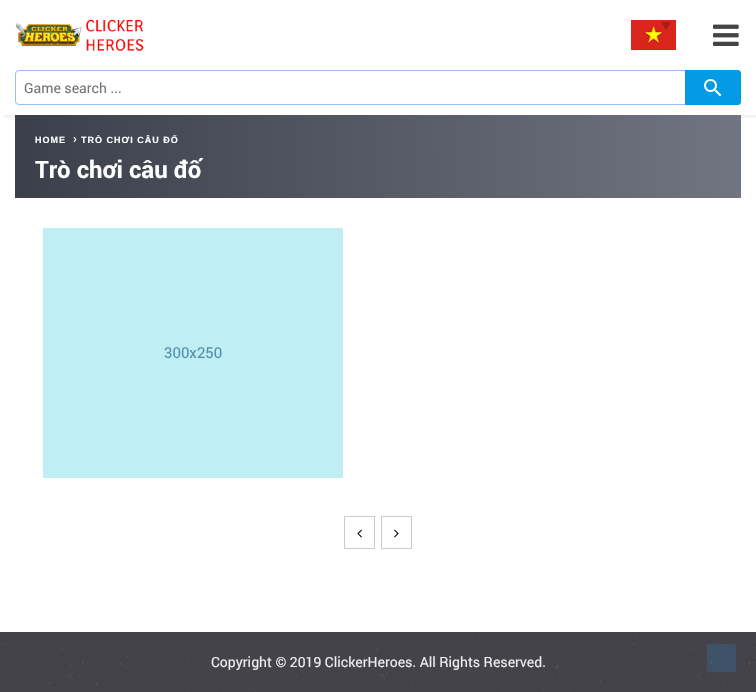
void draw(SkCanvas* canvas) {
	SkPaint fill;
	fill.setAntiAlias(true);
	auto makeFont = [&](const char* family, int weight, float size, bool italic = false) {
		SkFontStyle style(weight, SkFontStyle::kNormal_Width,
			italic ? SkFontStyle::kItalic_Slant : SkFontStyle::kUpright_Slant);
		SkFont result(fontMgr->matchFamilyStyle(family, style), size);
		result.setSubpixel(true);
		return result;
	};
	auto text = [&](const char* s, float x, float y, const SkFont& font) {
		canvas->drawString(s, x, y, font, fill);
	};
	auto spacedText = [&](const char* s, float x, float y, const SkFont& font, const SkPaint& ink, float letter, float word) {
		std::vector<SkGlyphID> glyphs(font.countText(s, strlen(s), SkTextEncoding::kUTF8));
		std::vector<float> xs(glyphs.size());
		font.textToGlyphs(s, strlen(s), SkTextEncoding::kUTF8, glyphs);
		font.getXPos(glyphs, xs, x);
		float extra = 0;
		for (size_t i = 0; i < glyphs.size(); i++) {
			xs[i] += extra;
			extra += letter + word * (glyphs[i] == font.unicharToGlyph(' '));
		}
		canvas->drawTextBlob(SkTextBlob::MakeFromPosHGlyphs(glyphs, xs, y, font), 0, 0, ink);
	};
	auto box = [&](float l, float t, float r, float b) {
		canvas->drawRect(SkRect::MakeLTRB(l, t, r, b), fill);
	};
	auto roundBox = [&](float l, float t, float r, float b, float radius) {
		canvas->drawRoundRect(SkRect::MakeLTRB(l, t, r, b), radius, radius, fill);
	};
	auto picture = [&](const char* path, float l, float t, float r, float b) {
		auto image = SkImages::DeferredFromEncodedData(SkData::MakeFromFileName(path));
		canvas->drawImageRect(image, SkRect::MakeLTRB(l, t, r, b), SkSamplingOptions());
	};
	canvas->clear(0xFFFFFFFF);
	canvas->save();
	canvas->clipRect(SkRect::MakeLTRB(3, 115, 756, 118));
	fill.setColor(0x0D000000);
	fill.setMaskFilter(SkMaskFilter::MakeBlur(kNormal_SkBlurStyle, 1.5f));
	canvas->drawRect(SkRect::MakeLTRB(3, 3, 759, 118), fill);
	fill.setMaskFilter(nullptr);
	canvas->restore();
	picture("image0.png", 15, 19, 144, 51);
	picture("image1.png", 631, 20, 676, 50);
	fill.setColor(0xFFA41C16);
	canvas->drawPath(SkPathBuilder().moveTo(661, 22).lineTo(671, 22).lineTo(666, 30).close().detach(), fill);
	picture("image2.png", 713, 24, 739, 46);
	fill.setStyle(SkPaint::kStroke_Style);
	fill.setStrokeWidth(1);
	fill.setColor(0xFF98BCF6);
	canvas->drawRoundRect(SkRect::MakeLTRB(15.5f, 70.5f, 740.5f, 104.5f), 3.5f, 3.5f, fill);
	fill.setStyle(SkPaint::kFill_Style);
	fill.setColor(0xFF039BE5);
	canvas->drawPath(SkPathBuilder().moveTo(685, 70).lineTo(738, 70).cubicTo(739.5f, 70, 741, 71.5f, 741, 73).lineTo(741, 102).cubicTo(741, 103.5f, 739.5f, 105, 738, 105).lineTo(685, 105).close().detach(), fill);
	picture("image3.png", 704, 79, 722, 97);
	{
		const SkColor colors[] = {0xFF3A3F4A, 0xFF717581};
		const float stops[] = {0, 1};
		const SkPoint ends[] = {{15, 157}, {741, 156}};
		fill.setShader(SkGradientShader::MakeLinear(ends, colors, stops, 2, SkTileMode::kClamp));
		fill.setAlpha(255);
	}
	box(15, 115, 741, 198);
	fill.setShader(nullptr);
	fill.setColor(0xFFBFEEF4);
	box(43, 228, 343, 478);
	fill.setStyle(SkPaint::kStroke_Style);
	fill.setColor(0xFFCCCCCC);
	canvas->drawRect(SkRect::MakeLTRB(344.5f, 516.5f, 374.5f, 548.5f), fill);
	picture("image4.png", 357, 529, 362, 538);
	canvas->drawRect(SkRect::MakeLTRB(381.5f, 516.5f, 411.5f, 548.5f), fill);
	picture("image5.png", 394, 529, 399, 538);
	picture("image6.png", 0, 632, 756, 692);
	fill.setStyle(SkPaint::kFill_Style);
	fill.setColor(0x47337AB7);
	roundBox(707, 644, 736, 672, 3);
	auto font1 = makeFont("Roboto", 400, 14);
	fill.setColor(0xFF757575);
	text("Game search ...", 24, 93, font1);
	auto font2 = makeFont("Liberation Sans", 700, 9);
	fill.setColor(0xFFFFFFFF);
	spacedText("HOME", 35, 143, font2, fill, 1, 0);
	auto font3 = makeFont("Roboto", 400, 13);
	text("›", 73, 143, font3);
	spacedText("TRÒ CHƠI CÂU ĐỐ", 81, 143, font2, fill, 1, 0);
	auto font4 = makeFont("Roboto", 700, 24);
	text("Trò chơi câu đố", 35, 178, font4);
	auto font5 = makeFont("Roboto", 400, 15);
	fill.setColor(0xFF5590A8);
	text("300x250", 164, 358, font5);
	fill.setColor(0xFFEEEEEE);
	text("Copyright © 2019 ClickerHeroes. All Rights Reserved.", 211, 667, font1);
}
